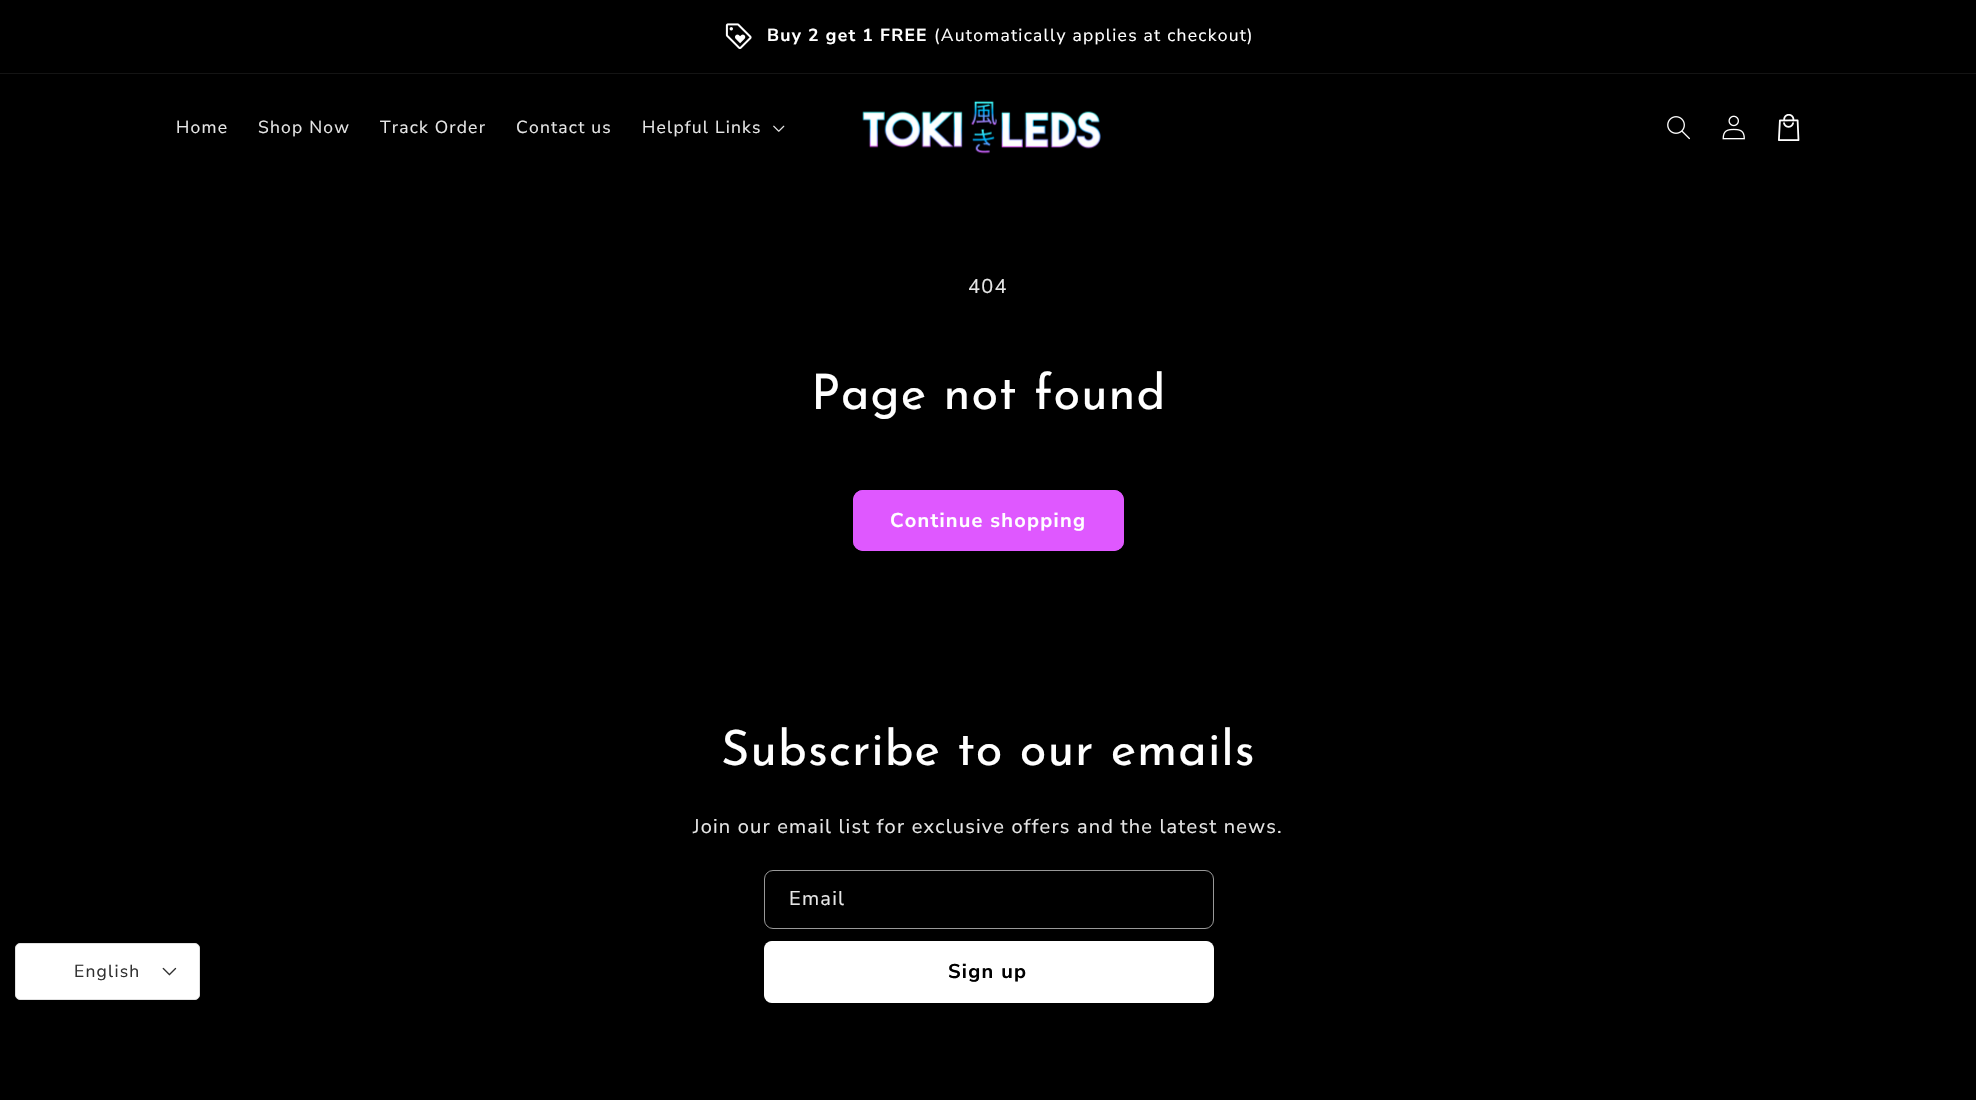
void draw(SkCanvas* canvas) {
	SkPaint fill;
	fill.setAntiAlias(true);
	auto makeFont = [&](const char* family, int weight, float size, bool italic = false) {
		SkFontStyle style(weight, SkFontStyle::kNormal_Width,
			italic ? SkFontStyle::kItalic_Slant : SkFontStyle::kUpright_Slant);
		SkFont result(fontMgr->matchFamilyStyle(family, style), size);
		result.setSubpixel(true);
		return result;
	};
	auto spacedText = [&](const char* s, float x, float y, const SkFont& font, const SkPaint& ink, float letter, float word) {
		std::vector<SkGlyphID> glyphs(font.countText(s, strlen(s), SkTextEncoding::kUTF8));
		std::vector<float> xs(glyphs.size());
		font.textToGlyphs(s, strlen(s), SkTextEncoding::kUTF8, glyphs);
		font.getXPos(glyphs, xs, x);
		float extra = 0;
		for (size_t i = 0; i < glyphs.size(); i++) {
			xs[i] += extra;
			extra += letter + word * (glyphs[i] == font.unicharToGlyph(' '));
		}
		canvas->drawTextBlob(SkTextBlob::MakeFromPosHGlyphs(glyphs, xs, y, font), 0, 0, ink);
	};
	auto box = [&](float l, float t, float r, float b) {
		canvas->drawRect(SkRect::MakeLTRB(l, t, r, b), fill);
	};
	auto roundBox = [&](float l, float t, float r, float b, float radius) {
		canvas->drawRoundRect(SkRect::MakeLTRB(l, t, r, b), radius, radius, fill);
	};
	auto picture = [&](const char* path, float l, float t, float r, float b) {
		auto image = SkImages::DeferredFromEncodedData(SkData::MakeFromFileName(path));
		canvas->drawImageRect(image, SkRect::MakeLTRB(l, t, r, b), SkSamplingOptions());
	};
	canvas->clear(0xFF000000);
	fill.setColor(0xFF141414);
	box(0, 73, 1976, 74);
	picture("image0.png", 725, 23, 752, 50);
	picture("image1.png", 773, 125, 785, 132);
	picture("image2.png", 862, 100, 1101, 154);
	picture("image3.png", 1667, 116, 1690, 140);
	picture("image4.png", 1722, 115, 1745, 140);
	picture("image5.png", 1778, 114, 1800, 141);
	fill.setColor(0xFFFFFFFF);
	canvas->drawRoundRect(SkRect::MakeLTRB(15.5f, 943.5f, 199.5f, 999.5f), 4.5f, 4.5f, fill);
	fill.setStyle(SkPaint::kStroke_Style);
	fill.setStrokeWidth(1);
	fill.setColor(0xFFE0E0E0);
	canvas->drawRoundRect(SkRect::MakeLTRB(15.5f, 943.5f, 199.5f, 999.5f), 4.5f, 4.5f, fill);
	picture("image6.png", 162, 967, 177, 976);
	fill.setStyle(SkPaint::kFill_Style);
	fill.setColor(0xFFDF58FF);
	roundBox(853, 490, 1124, 551, 10);
	fill.setStyle(SkPaint::kStroke_Style);
	fill.setStrokeWidth(3);
	canvas->drawRoundRect(SkRect::MakeLTRB(854.5f, 491.5f, 1122.5f, 549.5f), 8.5f, 8.5f, fill);
	fill.setStrokeWidth(1);
	fill.setColor(0xFF999999);
	canvas->drawRoundRect(SkRect::MakeLTRB(764.5f, 870.5f, 1213.5f, 928.5f), 8.5f, 8.5f, fill);
	fill.setStrokeWidth(3);
	fill.setColor(0xFFFFFFFF);
	canvas->drawRoundRect(SkRect::MakeLTRB(765.5f, 942.5f, 1212.5f, 1001.5f), 8.5f, 8.5f, fill);
	fill.setStyle(SkPaint::kFill_Style);
	roundBox(764, 941, 1214, 1003, 8);
	auto font1 = makeFont("Nunito Sans", 700, 17.5f);
	spacedText("Buy 2 get 1 FREE", 767, 41, font1, fill, 1.25f, 0);
	auto font2 = makeFont("Nunito Sans", 400, 17.5f);
	spacedText("(Automatically applies at checkout)", 934, 41, font2, fill, 1.25f, 0);
	fill.setColor(0xFFE6E6E6);
	spacedText("Home", 176, 133, font2, fill, 1.2f, 0);
	spacedText("Shop Now", 258, 133, font2, fill, 1.2f, 0);
	spacedText("Track Order", 380, 133, font2, fill, 1.2f, 0);
	spacedText("Contact us", 516, 133, font2, fill, 1.2f, 0);
	spacedText("Helpful Links", 642, 133, font2, fill, 1.2f, 0);
	fill.setColor(0xFF303030);
	spacedText("English", 74, 977, font2, fill, 1.2f, 0);
	auto font3 = makeFont("Nunito Sans", 400, 20);
	fill.setColor(0xFFE6E6E6);
	spacedText("404", 968, 293, font3, fill, 1.2f, 0);
	auto font4 = makeFont("Josefin Sans", 400, 48.75f);
	fill.setColor(0xFFFFFFFF);
	spacedText("Page not found", 811, 409, font4, fill, 1, 0);
	auto font5 = makeFont("Nunito Sans", 700, 20);
	spacedText("Continue shopping", 890, 527, font5, fill, 1.25f, 0);
	spacedText("Subscribe to our emails", 721, 765, font4, fill, 1, 0);
	fill.setColor(0xFFE6E6E6);
	spacedText("Join our email list for exclusive offers and the latest news.", 693, 833, font3, fill, 1.2f, 0);
	spacedText("Email", 789, 905, font3, fill, 1.25f, 0);
	fill.setColor(0xFF000000);
	spacedText("Sign up", 948, 978, font5, fill, 1.25f, 0);
}
